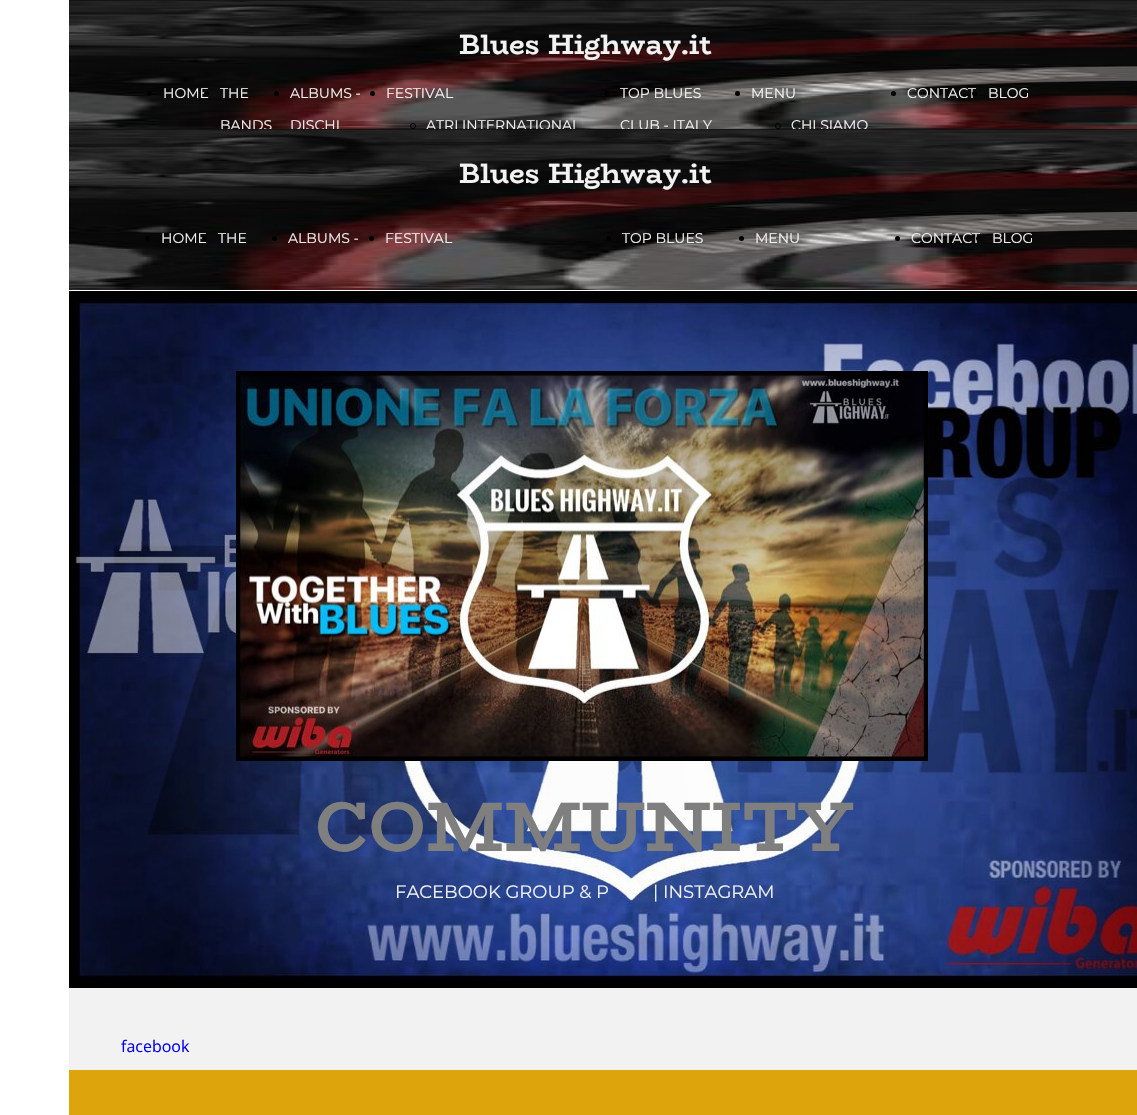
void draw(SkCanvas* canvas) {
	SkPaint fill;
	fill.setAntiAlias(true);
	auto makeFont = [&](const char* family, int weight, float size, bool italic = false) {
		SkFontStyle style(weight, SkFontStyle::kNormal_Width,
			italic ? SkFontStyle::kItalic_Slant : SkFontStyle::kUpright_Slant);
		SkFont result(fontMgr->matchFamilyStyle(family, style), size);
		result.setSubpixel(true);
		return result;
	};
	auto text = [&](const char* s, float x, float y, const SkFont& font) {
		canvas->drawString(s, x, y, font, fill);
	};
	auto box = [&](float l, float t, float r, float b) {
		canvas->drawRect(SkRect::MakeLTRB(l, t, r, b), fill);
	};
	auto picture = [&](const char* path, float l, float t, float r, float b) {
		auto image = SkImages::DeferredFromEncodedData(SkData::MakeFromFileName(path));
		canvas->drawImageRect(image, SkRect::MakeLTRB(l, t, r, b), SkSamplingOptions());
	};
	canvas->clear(0xFFFFFFFF);
	picture("image0.png", 69, 0, 1137, 129);
	fill.setColor(0xFF000000);
	canvas->drawCircle(149.5f, 93.5f, 2.5f, fill);
	canvas->drawCircle(276.5f, 93.5f, 2.5f, fill);
	canvas->drawCircle(372.5f, 93.5f, 2.5f, fill);
	fill.setStyle(SkPaint::kStroke_Style);
	fill.setStrokeWidth(1);
	canvas->drawCircle(413, 126, 2.5f, fill);
	fill.setStyle(SkPaint::kFill_Style);
	canvas->drawCircle(606.5f, 93.5f, 2.5f, fill);
	canvas->drawCircle(737.5f, 93.5f, 2.5f, fill);
	fill.setStyle(SkPaint::kStroke_Style);
	canvas->drawCircle(778, 126, 2.5f, fill);
	fill.setStyle(SkPaint::kFill_Style);
	canvas->drawCircle(893.5f, 93.5f, 2.5f, fill);
	box(69, 291, 1137, 988);
	picture("image2.png", 69, 300, 1137, 979);
	picture("image3.png", 236, 371, 928, 761);
	fill.setColor(0xFFF2F2F2);
	box(69, 988, 1137, 1070);
	fill.setColor(0xFFDEA40B);
	box(69, 1070, 1137, 1115);
	auto font1 = makeFont("BioRhyme", 700, 28);
	fill.setColor(0xFFF2F2F2);
	text("Blues Highway.it", 459, 54, font1);
	auto font2 = makeFont("Montserrat", 400, 14);
	text("HOME", 163, 98, font2);
	fill.setColor(0xFF000000);
	canvas->drawCircle(206.5f, 93.5f, 2.5f, fill);
	fill.setColor(0xFFF2F2F2);
	text("THE", 220, 98, font2);
	text("BANDS", 220, 130, font2);
	text("ALBUMS -", 290, 98, font2);
	text("DISCHI", 290, 130, font2);
	text("FESTIVAL", 386, 98, font2);
	text("ATRI INTERNATIONAL", 426, 130, font2);
	text("TOP BLUES", 620, 98, font2);
	text("CLUB - ITALY", 620, 130, font2);
	text("MENU", 751, 98, font2);
	text("CHI SIAMO", 791, 130, font2);
	text("CONTACT", 907, 98, font2);
	fill.setColor(0xFF000000);
	canvas->drawCircle(974.5f, 93.5f, 2.5f, fill);
	fill.setColor(0xFFF2F2F2);
	text("BLOG", 988, 98, font2);
	picture("image1.png", 69, 129, 1137, 290);
	text("Blues Highway.it", 459, 183, font1);
	fill.setColor(0xFF000000);
	canvas->drawCircle(147.5f, 238.5f, 2.5f, fill);
	fill.setColor(0xFFF2F2F2);
	text("HOME", 161, 243, font2);
	fill.setColor(0xFF000000);
	canvas->drawCircle(204.5f, 238.5f, 2.5f, fill);
	fill.setColor(0xFFF2F2F2);
	text("THE", 218, 243, font2);
	fill.setColor(0xFF000000);
	canvas->drawCircle(274.5f, 238.5f, 2.5f, fill);
	fill.setColor(0xFFF2F2F2);
	text("ALBUMS -", 288, 243, font2);
	fill.setColor(0xFF000000);
	canvas->drawCircle(371.5f, 238.5f, 2.5f, fill);
	fill.setColor(0xFFF2F2F2);
	text("FESTIVAL", 385, 243, font2);
	fill.setColor(0xFF000000);
	canvas->drawCircle(608.5f, 238.5f, 2.5f, fill);
	fill.setColor(0xFFF2F2F2);
	text("TOP BLUES", 622, 243, font2);
	fill.setColor(0xFF000000);
	canvas->drawCircle(741.5f, 238.5f, 2.5f, fill);
	fill.setColor(0xFFF2F2F2);
	text("MENU", 755, 243, font2);
	fill.setColor(0xFF000000);
	canvas->drawCircle(897.5f, 238.5f, 2.5f, fill);
	fill.setColor(0xFFF2F2F2);
	text("CONTACT", 911, 243, font2);
	fill.setColor(0xFF000000);
	canvas->drawCircle(978.5f, 238.5f, 2.5f, fill);
	fill.setColor(0xFFF2F2F2);
	text("BLOG", 992, 243, font2);
	auto font3 = makeFont("BioRhyme", 700, 70.5f);
	fill.setColor(0xFF7F7F7F);
	text("COMMUNITY", 315, 851, font3);
	auto font4 = makeFont("Montserrat", 400, 18);
	fill.setColor(0xFFF2F2F2);
	text("FACEBOOK GROUP & P", 395, 898, font4);
	text("| INSTAGRAM", 653, 898, font4);
	auto font5 = makeFont("Open Sans", 400, 16);
	fill.setColor(0xFF0000FF);
	text("facebook", 121, 1052, font5);
}
